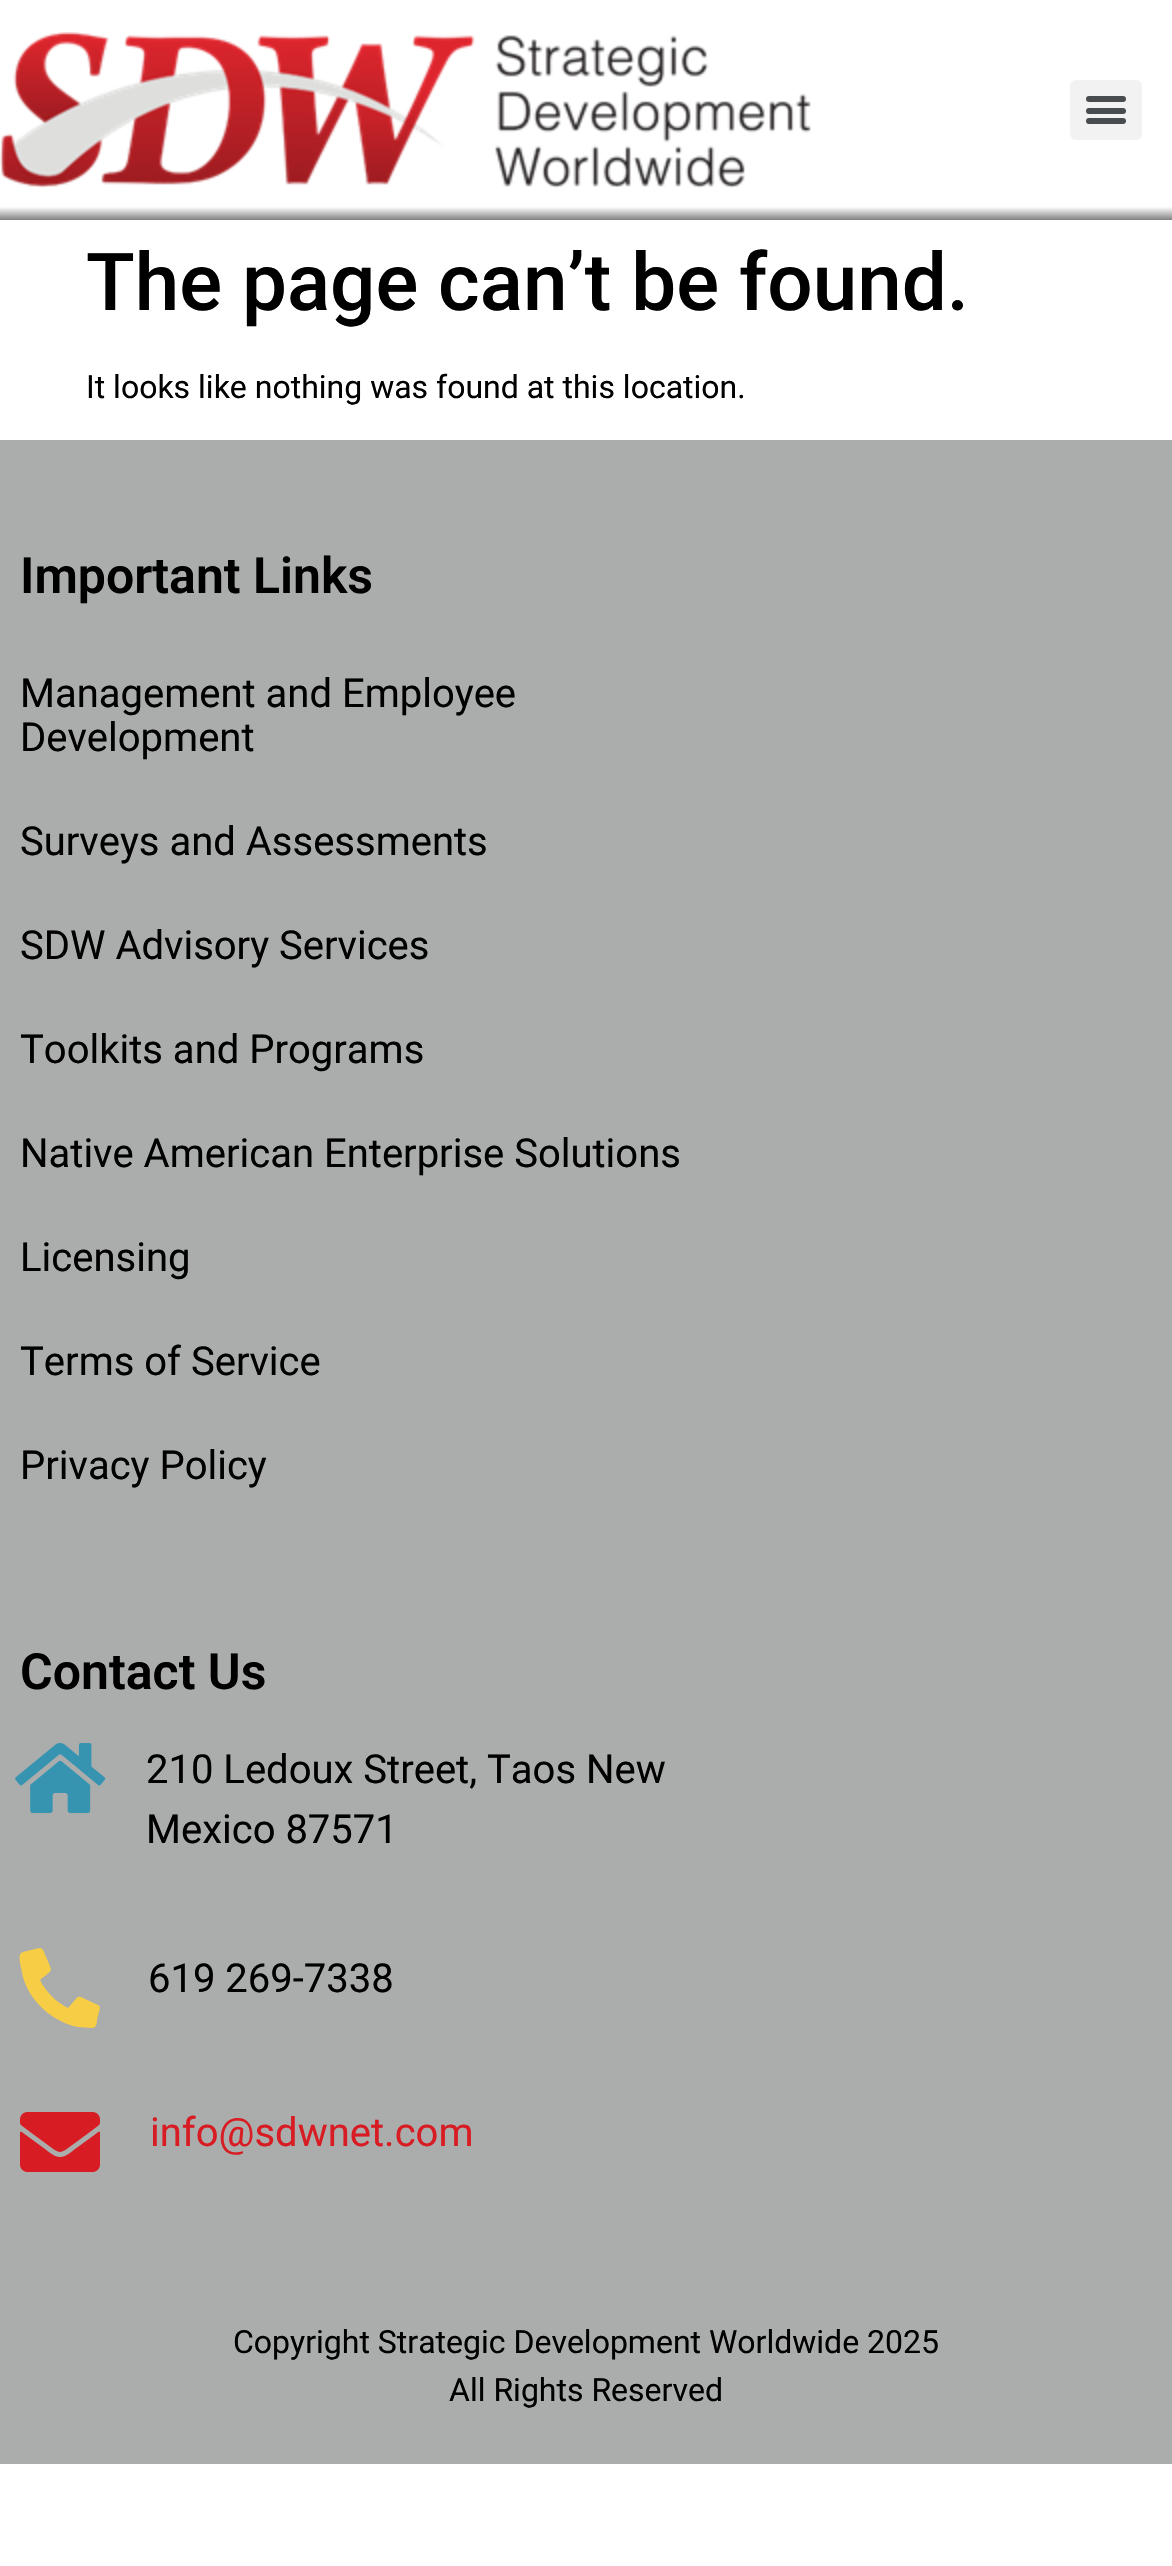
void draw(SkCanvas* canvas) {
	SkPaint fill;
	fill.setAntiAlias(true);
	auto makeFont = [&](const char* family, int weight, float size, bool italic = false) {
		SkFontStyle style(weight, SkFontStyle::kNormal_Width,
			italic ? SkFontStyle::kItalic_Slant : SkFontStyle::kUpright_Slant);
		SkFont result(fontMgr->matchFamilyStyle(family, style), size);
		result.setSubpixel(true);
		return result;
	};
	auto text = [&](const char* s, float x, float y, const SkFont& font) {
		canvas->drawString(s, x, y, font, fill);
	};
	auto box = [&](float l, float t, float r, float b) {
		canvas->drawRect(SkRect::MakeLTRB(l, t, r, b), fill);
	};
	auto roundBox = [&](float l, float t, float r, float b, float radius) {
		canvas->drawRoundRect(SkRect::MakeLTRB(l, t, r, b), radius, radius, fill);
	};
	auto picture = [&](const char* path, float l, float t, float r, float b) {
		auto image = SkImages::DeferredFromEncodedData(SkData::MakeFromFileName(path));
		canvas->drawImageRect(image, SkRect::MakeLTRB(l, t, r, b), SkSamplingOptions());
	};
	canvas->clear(0xFFFFFFFF);
	{
		const SkColor colors[] = {0xFFFFFFFF, 0xFF818181};
		const float stops[] = {0.94f, 1};
		const SkPoint ends[] = {{586, 0}, {586, 220}};
		fill.setShader(SkGradientShader::MakeLinear(ends, colors, stops, 2, SkTileMode::kClamp));
		fill.setAlpha(255);
	}
	box(0, 207, 1172, 220);
	picture("image0.png", 0, 32, 811, 188);
	fill.setShader(nullptr);
	fill.setColor(0xFFF2F2F2);
	roundBox(1070, 80, 1142, 140, 6);
	fill.setColor(0xFF494C4F);
	roundBox(1086, 108, 1126, 114, 3);
	roundBox(1086, 96, 1126, 102, 3);
	roundBox(1086, 118, 1126, 124, 3);
	fill.setColor(0xFFABADAD);
	box(0, 440, 1172, 2464);
	picture("image1.png", 15, 1743, 106, 1813);
	fill.setColor(0xFFF7CD46);
	canvas->drawPath(SkPathBuilder().moveTo(98, 2005).cubicTo(99, 2005, 100, 2007, 100, 2008).lineTo(97, 2020).cubicTo(97, 2022, 97, 2028, 92, 2028).lineTo(78, 2027).cubicTo(53, 2022, 30, 2002, 23, 1977).cubicTo(22, 1972, 21, 1968, 20, 1963).cubicTo(19, 1951, 20, 1953, 31, 1950).cubicTo(44, 1947, 41, 1946, 47, 1959).cubicTo(53, 1973, 53, 1969, 40, 1980).cubicTo(46, 1992, 56, 2002, 68, 2008).lineTo(75, 2000).cubicTo(78, 1996, 79, 1996, 83, 1998).close().detach(), fill);
	picture("image2.png", 20, 2112, 100, 2172);
	auto font1 = makeFont("Roboto", 500, 80);
	fill.setColor(0xFF000000);
	text("The page can’t be found.", 86, 310, font1);
	auto font2 = makeFont("Roboto", 400, 32);
	text("It looks like nothing was found at this location.", 86, 398, font2);
	auto font3 = makeFont("Roboto", 600, 50);
	text("Important Links", 20, 593, font3);
	auto font4 = makeFont("Roboto", 400, 40);
	text("Management and Employee", 20, 707, font4);
	text("Development", 20, 751, font4);
	text("Surveys and Assessments", 20, 855, font4);
	text("SDW Advisory Services", 20, 959, font4);
	text("Toolkits and Programs", 20, 1063, font4);
	text("Native American Enterprise Solutions", 20, 1167, font4);
	text("Licensing", 20, 1271, font4);
	text("Terms of Service", 20, 1375, font4);
	text("Privacy Policy", 20, 1479, font4);
	text("Contact Us", 20, 1689, font3);
	text("210 Ledoux Street, Taos New", 146, 1783, font4);
	text("Mexico 87571", 146, 1843, font4);
	text("619 269-7338", 148, 1992, font4);
	fill.setColor(0xFFD81C23);
	text("info@sdwnet.com", 150, 2146, font4);
	fill.setColor(0xFF000000);
	text("Copyright Strategic Development Worldwide 2025", 233, 2353, font2);
	text("All Rights Reserved", 449, 2401, font2);
}
